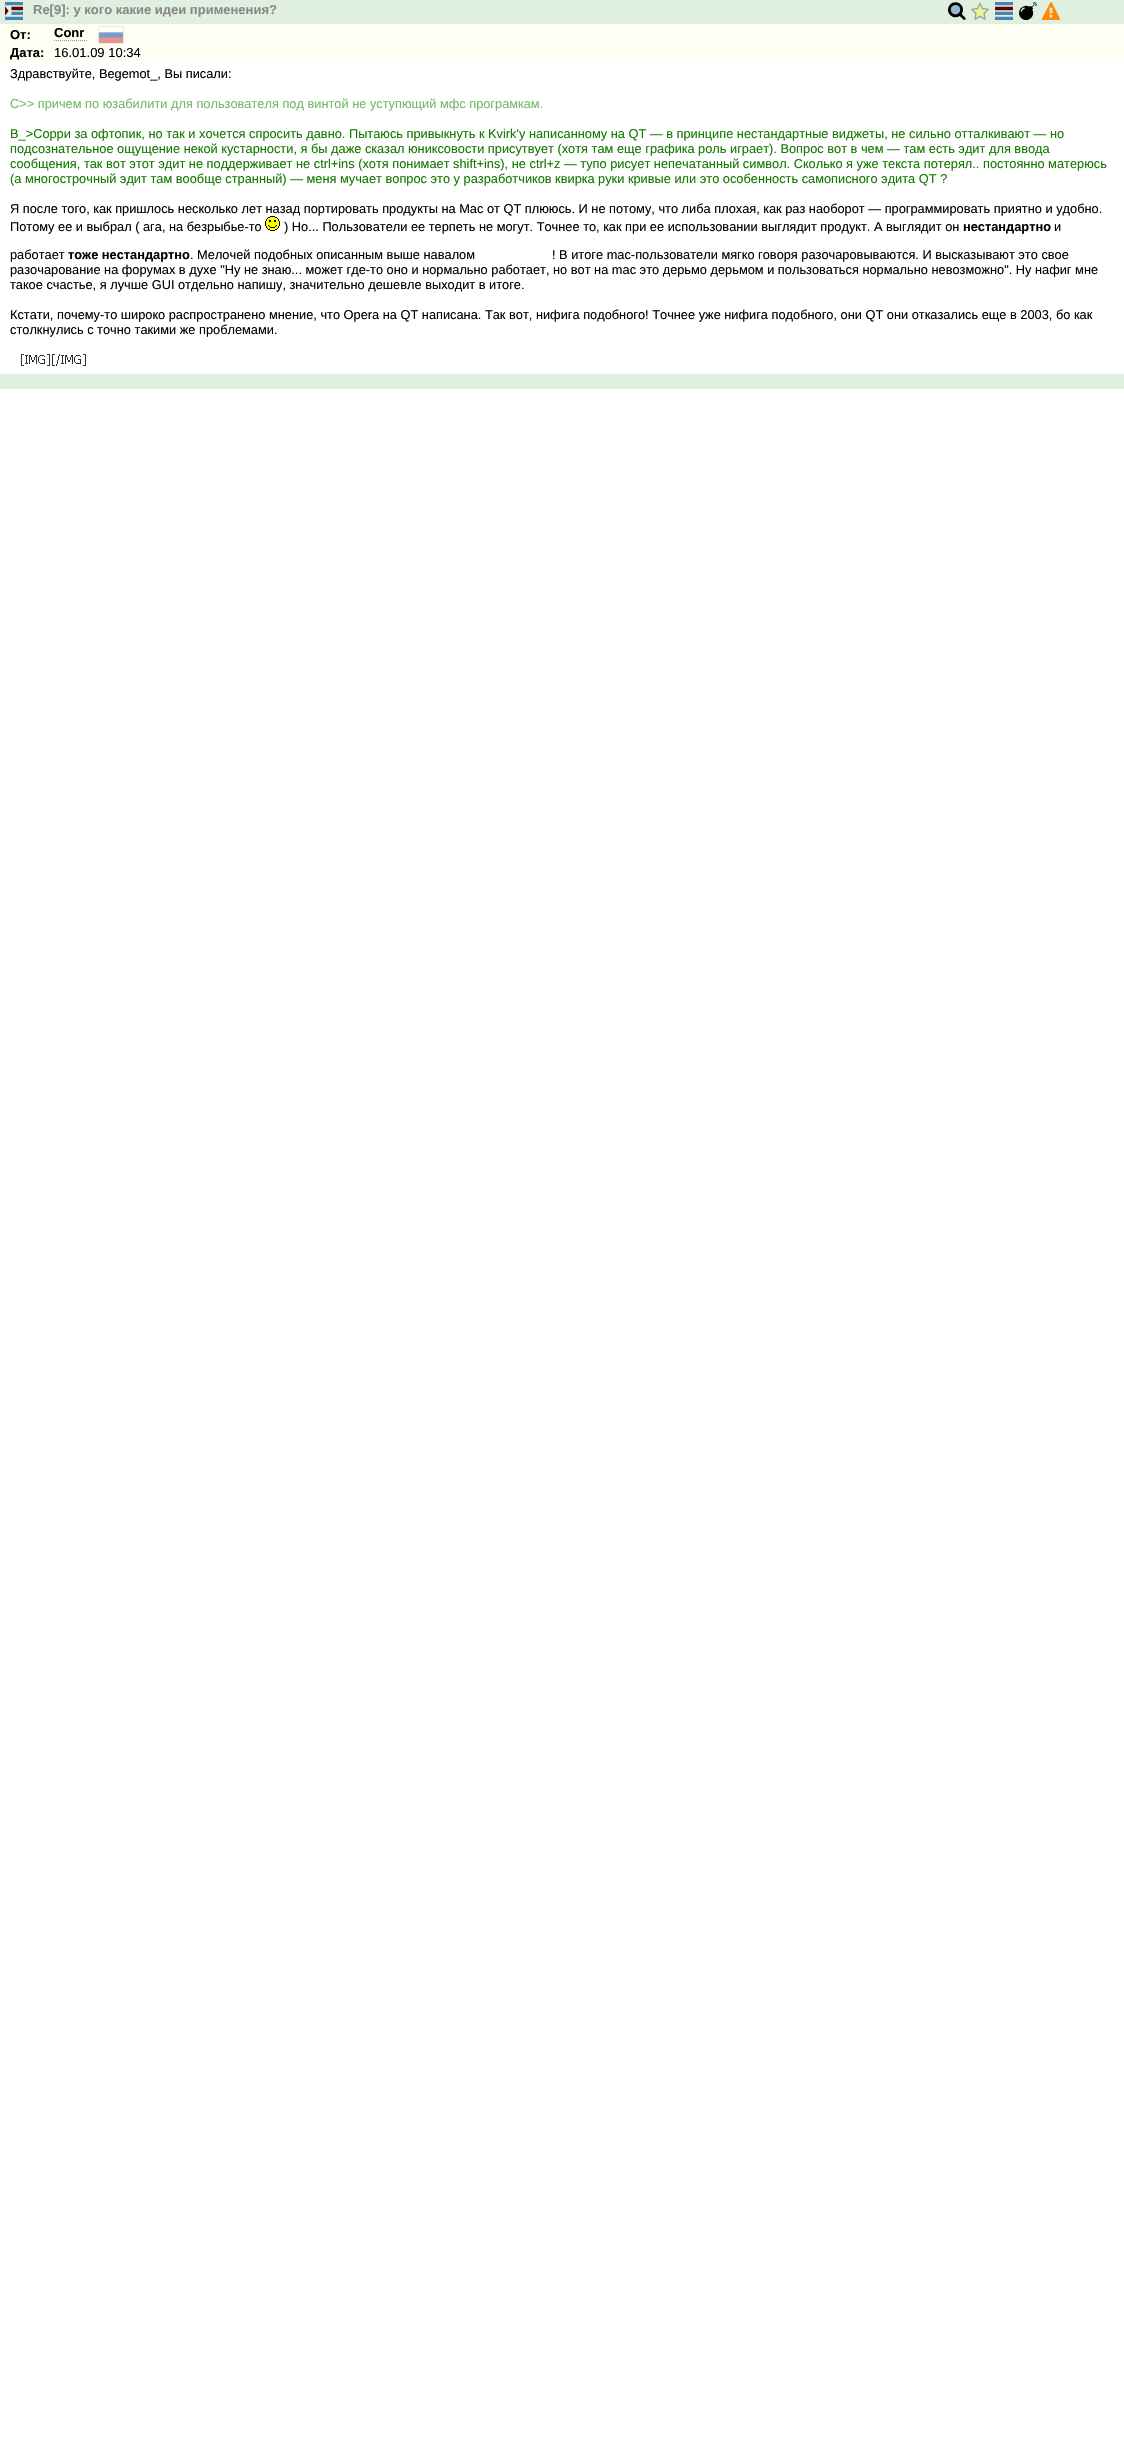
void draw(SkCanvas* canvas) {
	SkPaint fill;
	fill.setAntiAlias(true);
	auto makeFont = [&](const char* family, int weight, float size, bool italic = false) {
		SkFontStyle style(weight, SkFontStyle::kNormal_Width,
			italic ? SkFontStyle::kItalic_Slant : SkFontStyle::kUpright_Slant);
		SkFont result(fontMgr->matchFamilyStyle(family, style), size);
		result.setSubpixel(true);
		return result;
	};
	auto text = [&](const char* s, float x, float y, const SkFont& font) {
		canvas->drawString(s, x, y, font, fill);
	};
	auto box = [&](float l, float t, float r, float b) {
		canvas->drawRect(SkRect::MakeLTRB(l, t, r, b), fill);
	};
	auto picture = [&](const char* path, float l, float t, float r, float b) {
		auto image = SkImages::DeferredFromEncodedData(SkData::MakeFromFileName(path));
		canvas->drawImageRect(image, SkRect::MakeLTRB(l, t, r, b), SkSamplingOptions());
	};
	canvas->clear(0xFFFFFFFF);
	fill.setColor(0xFFE0F0E0);
	box(0, 0, 1124, 24);
	picture("image0.png", 5, 2, 23, 20);
	picture("image1.png", 948, 2, 966, 20);
	picture("image2.png", 971, 2, 989, 20);
	picture("image3.png", 995, 2, 1013, 20);
	picture("image4.png", 1019, 2, 1037, 20);
	picture("image5.png", 1042, 2, 1060, 20);
	fill.setColor(0xFFFFFFF4);
	box(0, 24, 7, 61);
	fill.setColor(0xFFFDFEFE);
	box(5, 45, 6, 46);
	fill.setColor(0xFFFFFFF4);
	box(7, 24, 1105, 44);
	fill.setStyle(SkPaint::kStroke_Style);
	fill.setStrokeWidth(1);
	fill.setColor(0xFF999992);
	fill.setPathEffect(SkDashPathEffect::Make({{1, 1}}, 0));
	canvas->drawPath(SkPathBuilder().moveTo(54, 40.5f).lineTo(88, 40.5f).detach(), fill);
	fill.setPathEffect(nullptr);
	fill.setColor(0xFFE9E9E4);
	canvas->drawRect(SkRect::MakeLTRB(98.5f, 26.5f, 123.5f, 43.5f), fill);
	picture("image6.png", 99, 27, 123, 43);
	fill.setStyle(SkPaint::kFill_Style);
	fill.setColor(0xFFFFFFF4);
	box(1105, 24, 1124, 61);
	box(7, 44, 1105, 61);
	picture("image7.png", 265, 216, 280, 231);
	picture("image8.png", 21, 354, 86, 366);
	fill.setColor(0xFFE0F0E0);
	box(0, 374, 1124, 389);
	auto font1 = makeFont("Liberation Sans", 700, 13);
	fill.setColor(0xFF888888);
	text("Re[9]: у кого какие идеи применения?", 33, 14, font1);
	fill.setColor(0xFF000000);
	text("От:", 10, 39, font1);
	text("Conr", 54, 37, font1);
	text("Дата:", 10, 57, font1);
	auto font2 = makeFont("Liberation Sans", 400, 13);
	text("16.01.09 10:34", 54, 57, font2);
	auto font3 = makeFont("Liberation Sans", 400, 12.8f);
	text("Здравствуйте, Begemot_, Вы писали:", 10, 78, font3);
	fill.setColor(0xFF74B967);
	text("C>> причем по юзабилити для пользователя под винтой не уступющий мфс програмкам.", 10, 108, font3);
	fill.setColor(0xFF137900);
	text("B_>Сорри за офтопик, но так и хочется спросить давно. Пытаюсь привыкнуть к Kvirk'у написанному на QT — в принципе нестандартные виджеты, не сильно отталкивают — но", 10, 138, font3);
	text("подсознательное ощущение некой кустарности, я бы даже сказал юниксовости присутвует (хотя там еще графика роль играет). Вопрос вот в чем — там есть эдит для ввода", 10, 153, font3);
	text("сообщения, так вот этот эдит не поддерживает не ctrl+ins (хотя понимает shift+ins), не ctrl+z — тупо рисует непечатанный символ. Сколько я уже текста потерял.. постоянно матерюсь", 10, 168, font3);
	text("(а многострочный эдит там вообще странный) — меня мучает вопрос это у разработчиков квирка руки кривые или это особенность самописного эдита QT ?", 10, 183, font3);
	fill.setColor(0xFF000000);
	text("Я после того, как пришлось несколько лет назад портировать продукты на Mac от QT плююсь. И не потому, что либа плохая, как раз наоборот — программировать приятно и удобно.", 10, 213, font3);
	text("Потому ее и выбрал ( ага, на безрыбье-то", 10, 231, font3);
	text(") Но... Пользователи ее терпеть не могут. Точнее то, как при ее использовании выглядит продукт. А выглядит он", 284, 231, font3);
	auto font4 = makeFont("Liberation Sans", 700, 12.8f);
	text("нестандартно", 963, 231, font4);
	text("и", 1054, 231, font3);
	text("работает", 10, 259, font3);
	text("тоже нестандартно", 68, 259, font4);
	text(". Мелочей подобных описанным выше навалом", 190, 259, font3);
	text("! В итоге mac-пользователи мягко говоря разочаровываются. И высказывают это свое", 552, 259, font3);
	text("разочарование на форумах в духе \"Ну не знаю... может где-то оно и нормально работает, но вот на mac это дерьмо дерьмом и пользоваться нормально невозможно\". Ну нафиг мне", 10, 274, font3);
	text("такое счастье, я лучше GUI отдельно напишу, значительно дешевле выходит в итоге.", 10, 289, font3);
	text("Кстати, почему-то широко распространено мнение, что Opera на QT написана. Так вот, нифига подобного! Точнее уже нифига подобного, они QT они отказались еще в 2003, бо как", 10, 319, font3);
	text("столкнулись с точно такими же проблемами.", 10, 334, font3);
}
